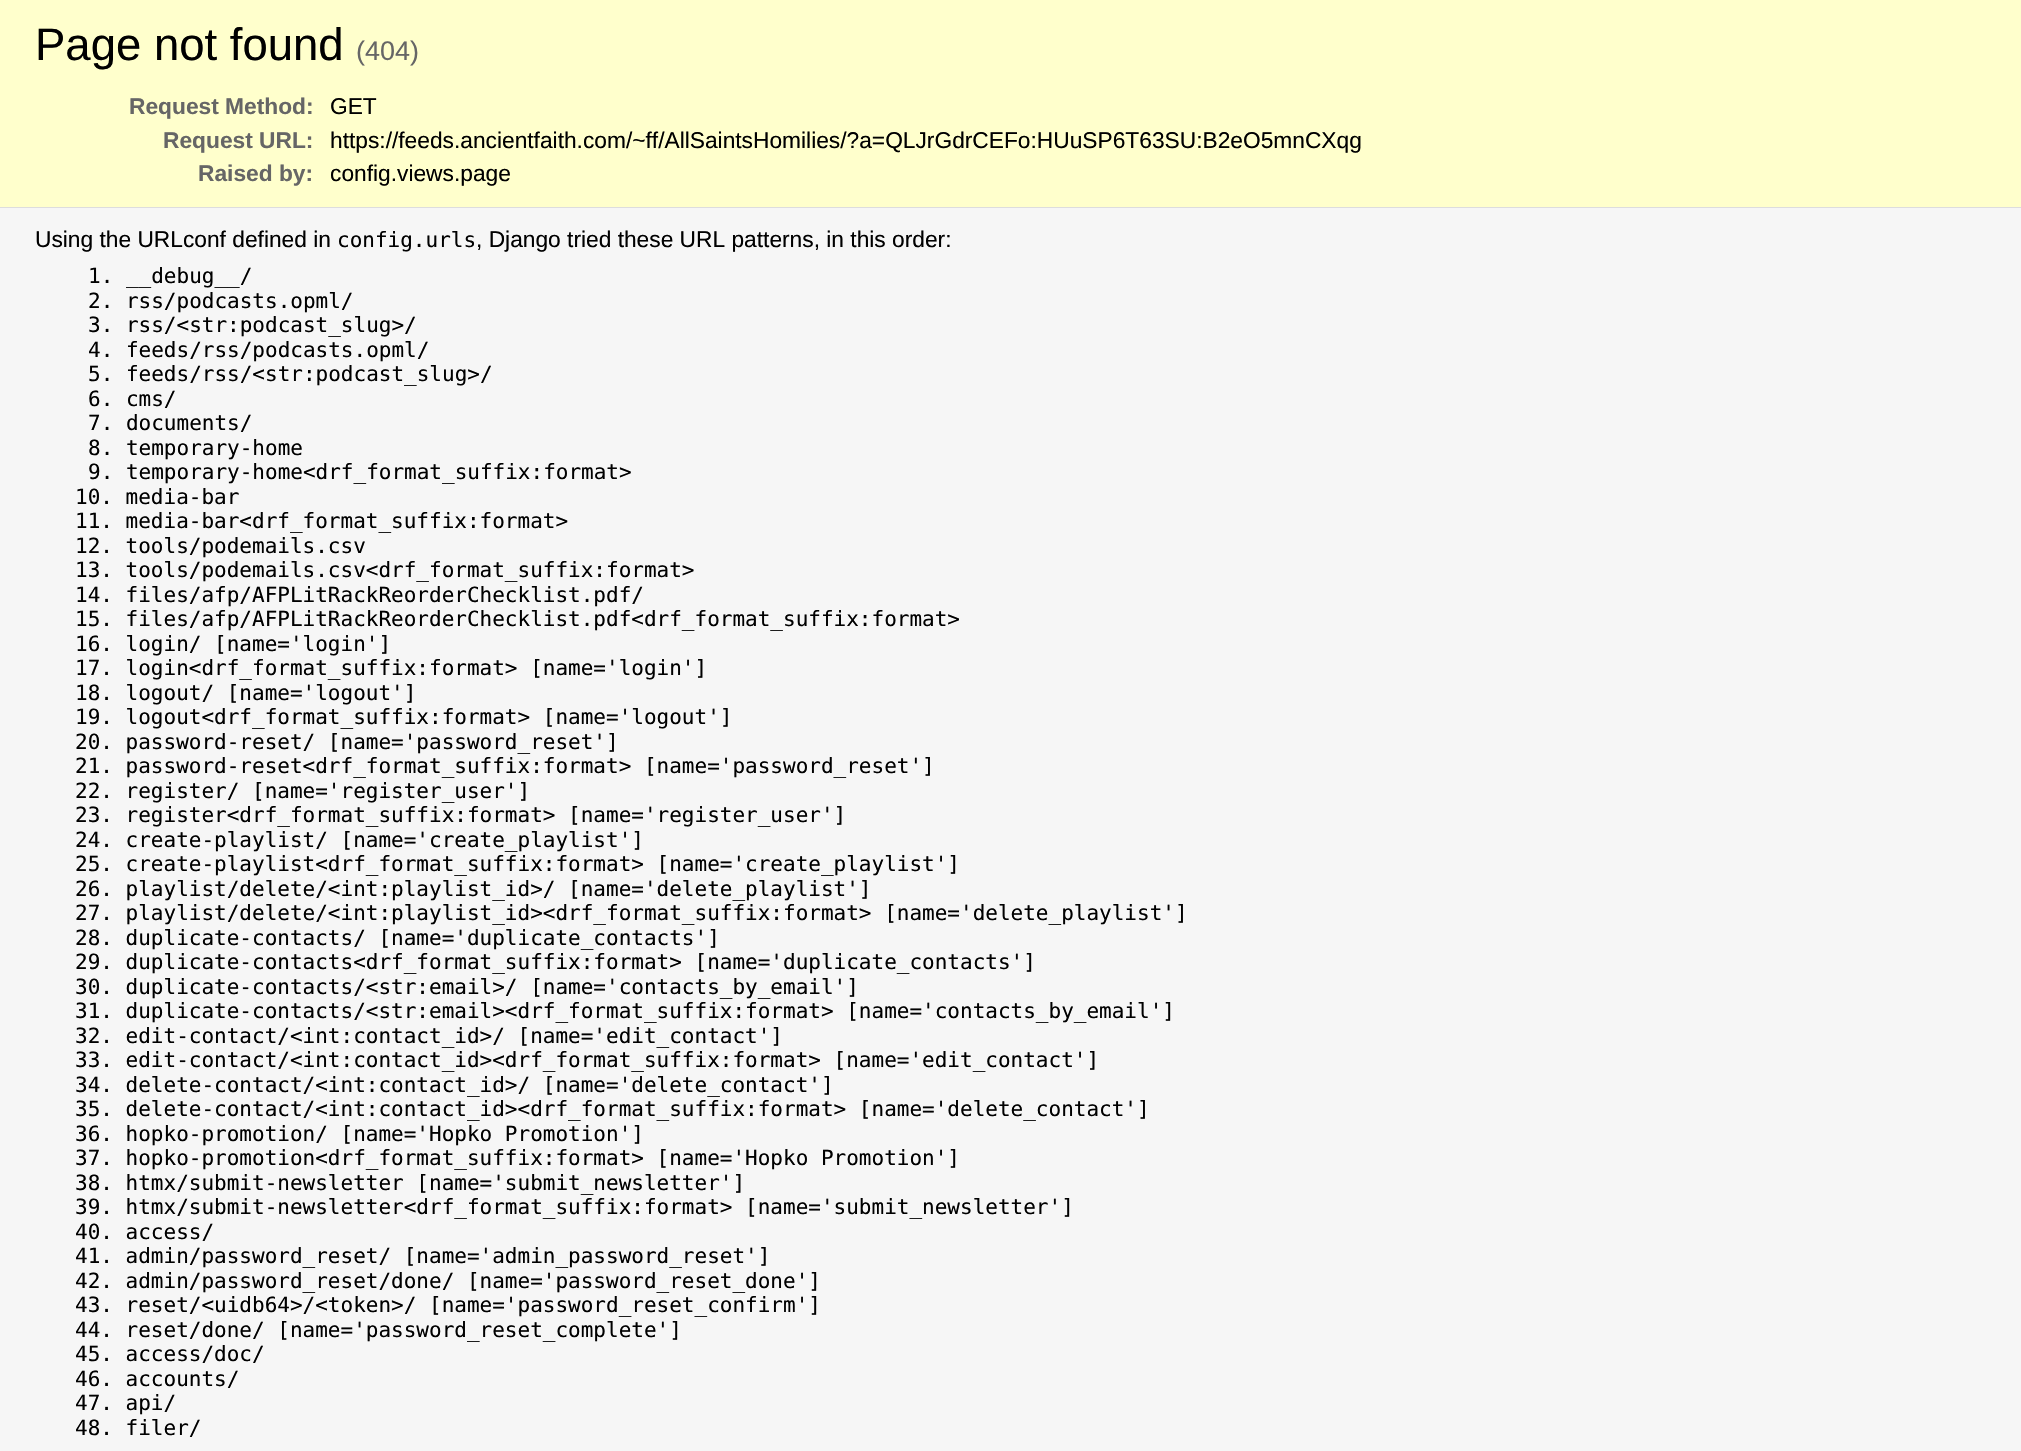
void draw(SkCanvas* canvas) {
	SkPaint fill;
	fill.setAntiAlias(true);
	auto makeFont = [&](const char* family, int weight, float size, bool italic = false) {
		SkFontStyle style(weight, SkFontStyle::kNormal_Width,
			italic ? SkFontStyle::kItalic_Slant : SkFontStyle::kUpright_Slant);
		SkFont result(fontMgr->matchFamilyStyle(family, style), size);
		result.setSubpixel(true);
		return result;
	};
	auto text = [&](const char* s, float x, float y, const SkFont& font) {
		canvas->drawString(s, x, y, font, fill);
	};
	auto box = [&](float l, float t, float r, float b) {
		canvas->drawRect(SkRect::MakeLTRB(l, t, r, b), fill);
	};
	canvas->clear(0xFFFFFFCC);
	fill.setColor(0xFFDDDDDD);
	box(0, 207, 2021, 208);
	fill.setColor(0xFFF6F6F6);
	box(0, 208, 2021, 1451);
	auto font1 = makeFont("Liberation Sans", 400, 45.5f);
	fill.setColor(0xFF000000);
	text("Page not found", 35, 60, font1);
	auto font2 = makeFont("Liberation Sans", 400, 27);
	fill.setColor(0xFF666666);
	text("(404)", 356, 60, font2);
	auto font3 = makeFont("Liberation Sans", 700, 22.75f);
	text("Request Method:", 129, 114, font3);
	auto font4 = makeFont("Liberation Sans", 400, 22.75f);
	fill.setColor(0xFF000000);
	text("GET", 330, 114, font4);
	fill.setColor(0xFF666666);
	text("Request URL:", 163, 148, font3);
	fill.setColor(0xFF000000);
	text("https://feeds.ancientfaith.com/~ff/AllSaintsHomilies/?a=QLJrGdrCEFo:HUuSP6T63SU:B2eO5mnCXqg", 330, 148, font4);
	fill.setColor(0xFF666666);
	text("Raised by:", 198, 181, font3);
	fill.setColor(0xFF000000);
	text("config.views.page", 330, 181, font4);
	text("Using the URLconf defined in", 35, 247, font4);
	auto font5 = makeFont("DejaVu Sans Mono", 400, 21);
	text("config.urls", 337, 247, font5);
	text(", Django tried these URL patterns, in this order:", 476, 247, font4);
	text("1. __debug__/", 88, 283, font5);
	text("2. rss/podcasts.opml/", 88, 308, font5);
	text("3. rss/<str:podcast_slug>/", 88, 332, font5);
	text("4. feeds/rss/podcasts.opml/", 88, 357, font5);
	text("5. feeds/rss/<str:podcast_slug>/", 88, 381, font5);
	text("6. cms/", 88, 406, font5);
	text("7. documents/", 88, 430, font5);
	text("8. temporary-home", 88, 455, font5);
	text("9. temporary-home<drf_format_suffix:format>", 88, 479, font5);
	text("10. media-bar", 75, 504, font5);
	text("11. media-bar<drf_format_suffix:format>", 75, 528, font5);
	text("12. tools/podemails.csv", 75, 553, font5);
	text("13. tools/podemails.csv<drf_format_suffix:format>", 75, 577, font5);
	text("14. files/afp/AFPLitRackReorderChecklist.pdf/", 75, 602, font5);
	text("15. files/afp/AFPLitRackReorderChecklist.pdf<drf_format_suffix:format>", 75, 626, font5);
	text("16. login/ [name='login']", 75, 651, font5);
	text("17. login<drf_format_suffix:format> [name='login']", 75, 675, font5);
	text("18. logout/ [name='logout']", 75, 700, font5);
	text("19. logout<drf_format_suffix:format> [name='logout']", 75, 724, font5);
	text("20. password-reset/ [name='password_reset']", 75, 749, font5);
	text("21. password-reset<drf_format_suffix:format> [name='password_reset']", 75, 773, font5);
	text("22. register/ [name='register_user']", 75, 798, font5);
	text("23. register<drf_format_suffix:format> [name='register_user']", 75, 822, font5);
	text("24. create-playlist/ [name='create_playlist']", 75, 847, font5);
	text("25. create-playlist<drf_format_suffix:format> [name='create_playlist']", 75, 871, font5);
	text("26. playlist/delete/<int:playlist_id>/ [name='delete_playlist']", 75, 896, font5);
	text("27. playlist/delete/<int:playlist_id><drf_format_suffix:format> [name='delete_playlist']", 75, 920, font5);
	text("28. duplicate-contacts/ [name='duplicate_contacts']", 75, 945, font5);
	text("29. duplicate-contacts<drf_format_suffix:format> [name='duplicate_contacts']", 75, 969, font5);
	text("30. duplicate-contacts/<str:email>/ [name='contacts_by_email']", 75, 994, font5);
	text("31. duplicate-contacts/<str:email><drf_format_suffix:format> [name='contacts_by_email']", 75, 1018, font5);
	text("32. edit-contact/<int:contact_id>/ [name='edit_contact']", 75, 1043, font5);
	text("33. edit-contact/<int:contact_id><drf_format_suffix:format> [name='edit_contact']", 75, 1067, font5);
	text("34. delete-contact/<int:contact_id>/ [name='delete_contact']", 75, 1092, font5);
	text("35. delete-contact/<int:contact_id><drf_format_suffix:format> [name='delete_contact']", 75, 1116, font5);
	text("36. hopko-promotion/ [name='Hopko Promotion']", 75, 1141, font5);
	text("37. hopko-promotion<drf_format_suffix:format> [name='Hopko Promotion']", 75, 1165, font5);
	text("38. htmx/submit-newsletter [name='submit_newsletter']", 75, 1190, font5);
	text("39. htmx/submit-newsletter<drf_format_suffix:format> [name='submit_newsletter']", 75, 1214, font5);
	text("40. access/", 75, 1239, font5);
	text("41. admin/password_reset/ [name='admin_password_reset']", 75, 1263, font5);
	text("42. admin/password_reset/done/ [name='password_reset_done']", 75, 1288, font5);
	text("43. reset/<uidb64>/<token>/ [name='password_reset_confirm']", 75, 1312, font5);
	text("44. reset/done/ [name='password_reset_complete']", 75, 1337, font5);
	text("45. access/doc/", 75, 1361, font5);
	text("46. accounts/", 75, 1386, font5);
	text("47. api/", 75, 1410, font5);
	text("48. filer/", 75, 1435, font5);
}
